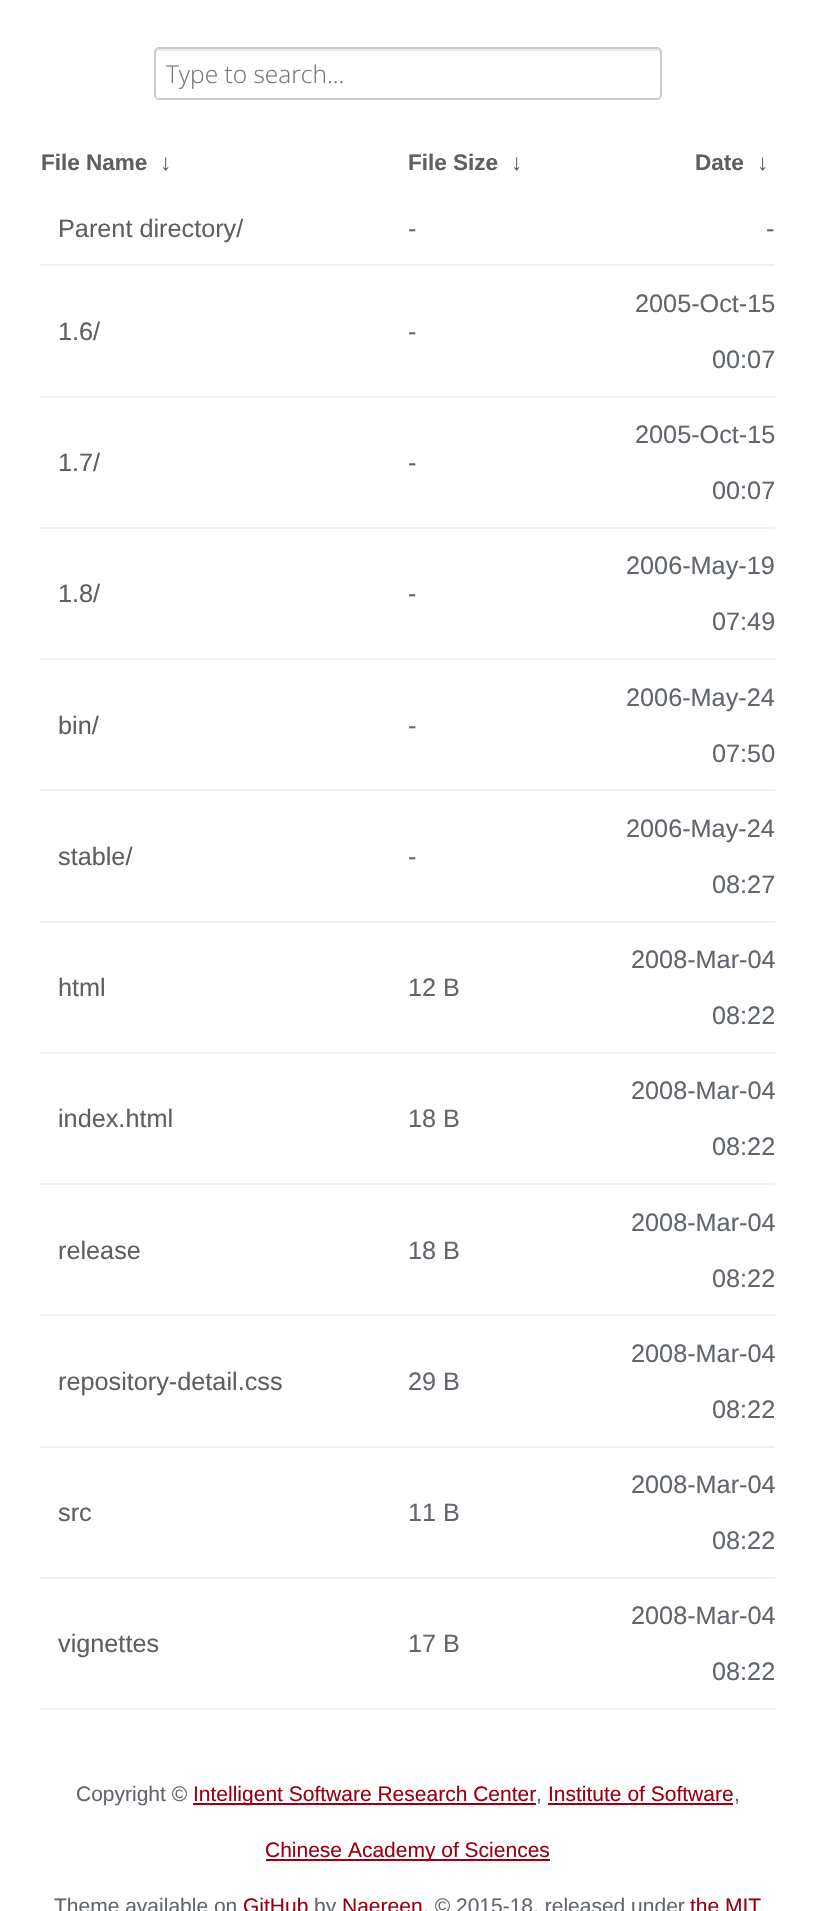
void draw(SkCanvas* canvas) {
	SkPaint fill;
	fill.setAntiAlias(true);
	auto makeFont = [&](const char* family, int weight, float size, bool italic = false) {
		SkFontStyle style(weight, SkFontStyle::kNormal_Width,
			italic ? SkFontStyle::kItalic_Slant : SkFontStyle::kUpright_Slant);
		SkFont result(fontMgr->matchFamilyStyle(family, style), size);
		result.setSubpixel(true);
		return result;
	};
	auto text = [&](const char* s, float x, float y, const SkFont& font) {
		canvas->drawString(s, x, y, font, fill);
	};
	auto box = [&](float l, float t, float r, float b) {
		canvas->drawRect(SkRect::MakeLTRB(l, t, r, b), fill);
	};
	canvas->clear(0xFFFFFFFF);
	fill.setColor(0xFFECECEC);
	canvas->drawPath(SkPathBuilder().moveTo(159, 51).lineTo(656, 51).cubicTo(658, 51, 660, 52, 660, 54).cubicTo(660, 51, 659, 49, 656, 49).lineTo(160, 49).cubicTo(157, 49, 156, 51, 156, 54).cubicTo(156, 52, 157, 51, 159, 51).close().detach(), fill);
	fill.setStyle(SkPaint::kStroke_Style);
	fill.setStrokeWidth(2);
	fill.setColor(0xFFCCCCCC);
	canvas->drawRoundRect(SkRect::MakeLTRB(155, 48, 661, 99), 4, 4, fill);
	fill.setStyle(SkPaint::kFill_Style);
	fill.setColor(0xFFEDF1F5);
	box(40, 264, 775, 266);
	box(40, 396, 775, 398);
	box(40, 527, 775, 529);
	box(40, 658, 775, 660);
	box(40, 789, 775, 791);
	box(40, 921, 775, 923);
	box(40, 1052, 775, 1054);
	box(40, 1183, 775, 1185);
	box(40, 1314, 775, 1316);
	box(40, 1446, 775, 1448);
	box(40, 1577, 775, 1579);
	box(40, 1708, 775, 1710);
	fill.setColor(0xFF990012);
	box(193, 1803, 536, 1805);
	box(548, 1803, 733, 1805);
	box(266, 1859, 550, 1861);
	auto font1 = makeFont("Open Sans", 300, 24.5f);
	fill.setColor(0xFF757575);
	text("Type to search...", 166, 83, font1);
	auto font2 = makeFont("Liberation Sans", 700, 22.5f);
	fill.setColor(0xFF5F5F5F);
	text("File Name", 41, 170, font2);
	text("↓", 160, 170, font2);
	text("File Size", 408, 170, font2);
	text("↓", 511, 170, font2);
	text("Date", 695, 170, font2);
	text("↓", 757, 170, font2);
	auto font3 = makeFont("Liberation Sans", 400, 25.25f);
	text("Parent directory/", 58, 237, font3);
	fill.setColor(0xFF61666C);
	text("-", 408, 237, font3);
	text("-", 766, 237, font3);
	fill.setColor(0xFF5F5F5F);
	text("1.6/", 58, 340, font3);
	fill.setColor(0xFF61666C);
	text("-", 408, 340, font3);
	text("2005-Oct-15", 635, 312, font3);
	text("00:07", 712, 368, font3);
	fill.setColor(0xFF5F5F5F);
	text("1.7/", 58, 471, font3);
	fill.setColor(0xFF61666C);
	text("-", 408, 471, font3);
	text("2005-Oct-15", 635, 443, font3);
	text("00:07", 712, 499, font3);
	fill.setColor(0xFF5F5F5F);
	text("1.8/", 58, 602, font3);
	fill.setColor(0xFF61666C);
	text("-", 408, 602, font3);
	text("2006-May-19", 626, 574, font3);
	text("07:49", 712, 630, font3);
	fill.setColor(0xFF5F5F5F);
	text("bin/", 58, 734, font3);
	fill.setColor(0xFF61666C);
	text("-", 408, 734, font3);
	text("2006-May-24", 626, 706, font3);
	text("07:50", 712, 762, font3);
	fill.setColor(0xFF5F5F5F);
	text("stable/", 58, 865, font3);
	fill.setColor(0xFF61666C);
	text("-", 408, 865, font3);
	text("2006-May-24", 626, 837, font3);
	text("08:27", 712, 893, font3);
	fill.setColor(0xFF5F5F5F);
	text("html", 58, 996, font3);
	fill.setColor(0xFF61666C);
	text("12 B", 408, 996, font3);
	text("2008-Mar-04", 631, 968, font3);
	text("08:22", 712, 1024, font3);
	fill.setColor(0xFF5F5F5F);
	text("index.html", 58, 1127, font3);
	fill.setColor(0xFF61666C);
	text("18 B", 408, 1127, font3);
	text("2008-Mar-04", 631, 1099, font3);
	text("08:22", 712, 1155, font3);
	fill.setColor(0xFF5F5F5F);
	text("release", 58, 1259, font3);
	fill.setColor(0xFF61666C);
	text("18 B", 408, 1259, font3);
	text("2008-Mar-04", 631, 1231, font3);
	text("08:22", 712, 1287, font3);
	fill.setColor(0xFF5F5F5F);
	text("repository-detail.css", 58, 1390, font3);
	fill.setColor(0xFF61666C);
	text("29 B", 408, 1390, font3);
	text("2008-Mar-04", 631, 1362, font3);
	text("08:22", 712, 1418, font3);
	fill.setColor(0xFF5F5F5F);
	text("src", 58, 1521, font3);
	fill.setColor(0xFF61666C);
	text("11 B", 408, 1521, font3);
	text("2008-Mar-04", 631, 1493, font3);
	text("08:22", 712, 1549, font3);
	fill.setColor(0xFF5F5F5F);
	text("vignettes", 58, 1652, font3);
	fill.setColor(0xFF61666C);
	text("17 B", 408, 1652, font3);
	text("2008-Mar-04", 631, 1624, font3);
	text("08:22", 712, 1680, font3);
	auto font4 = makeFont("Liberation Sans", 400, 21);
	text("Copyright ©", 76, 1801, font4);
	fill.setColor(0xFF990012);
	text("Intelligent Software Research Center", 193, 1801, font4);
	fill.setColor(0xFF61666C);
	text(",", 536, 1801, font4);
	fill.setColor(0xFF990012);
	text("Institute of Software", 548, 1801, font4);
	fill.setColor(0xFF61666C);
	text(",", 734, 1801, font4);
	fill.setColor(0xFF990012);
	text("Chinese Academy of Sciences", 265, 1857, font4);
	fill.setColor(0xFF61666C);
	text("Theme available on", 54, 1913, font4);
	fill.setColor(0xFF990012);
	text("GitHub", 243, 1913, font4);
	fill.setColor(0xFF61666C);
	text("by", 314, 1913, font4);
	fill.setColor(0xFF990012);
	text("Naereen", 342, 1913, font4);
	fill.setColor(0xFF61666C);
	text(", © 2015-18, released under", 423, 1913, font4);
	fill.setColor(0xFF990012);
	text("the MIT", 690, 1913, font4);
}
